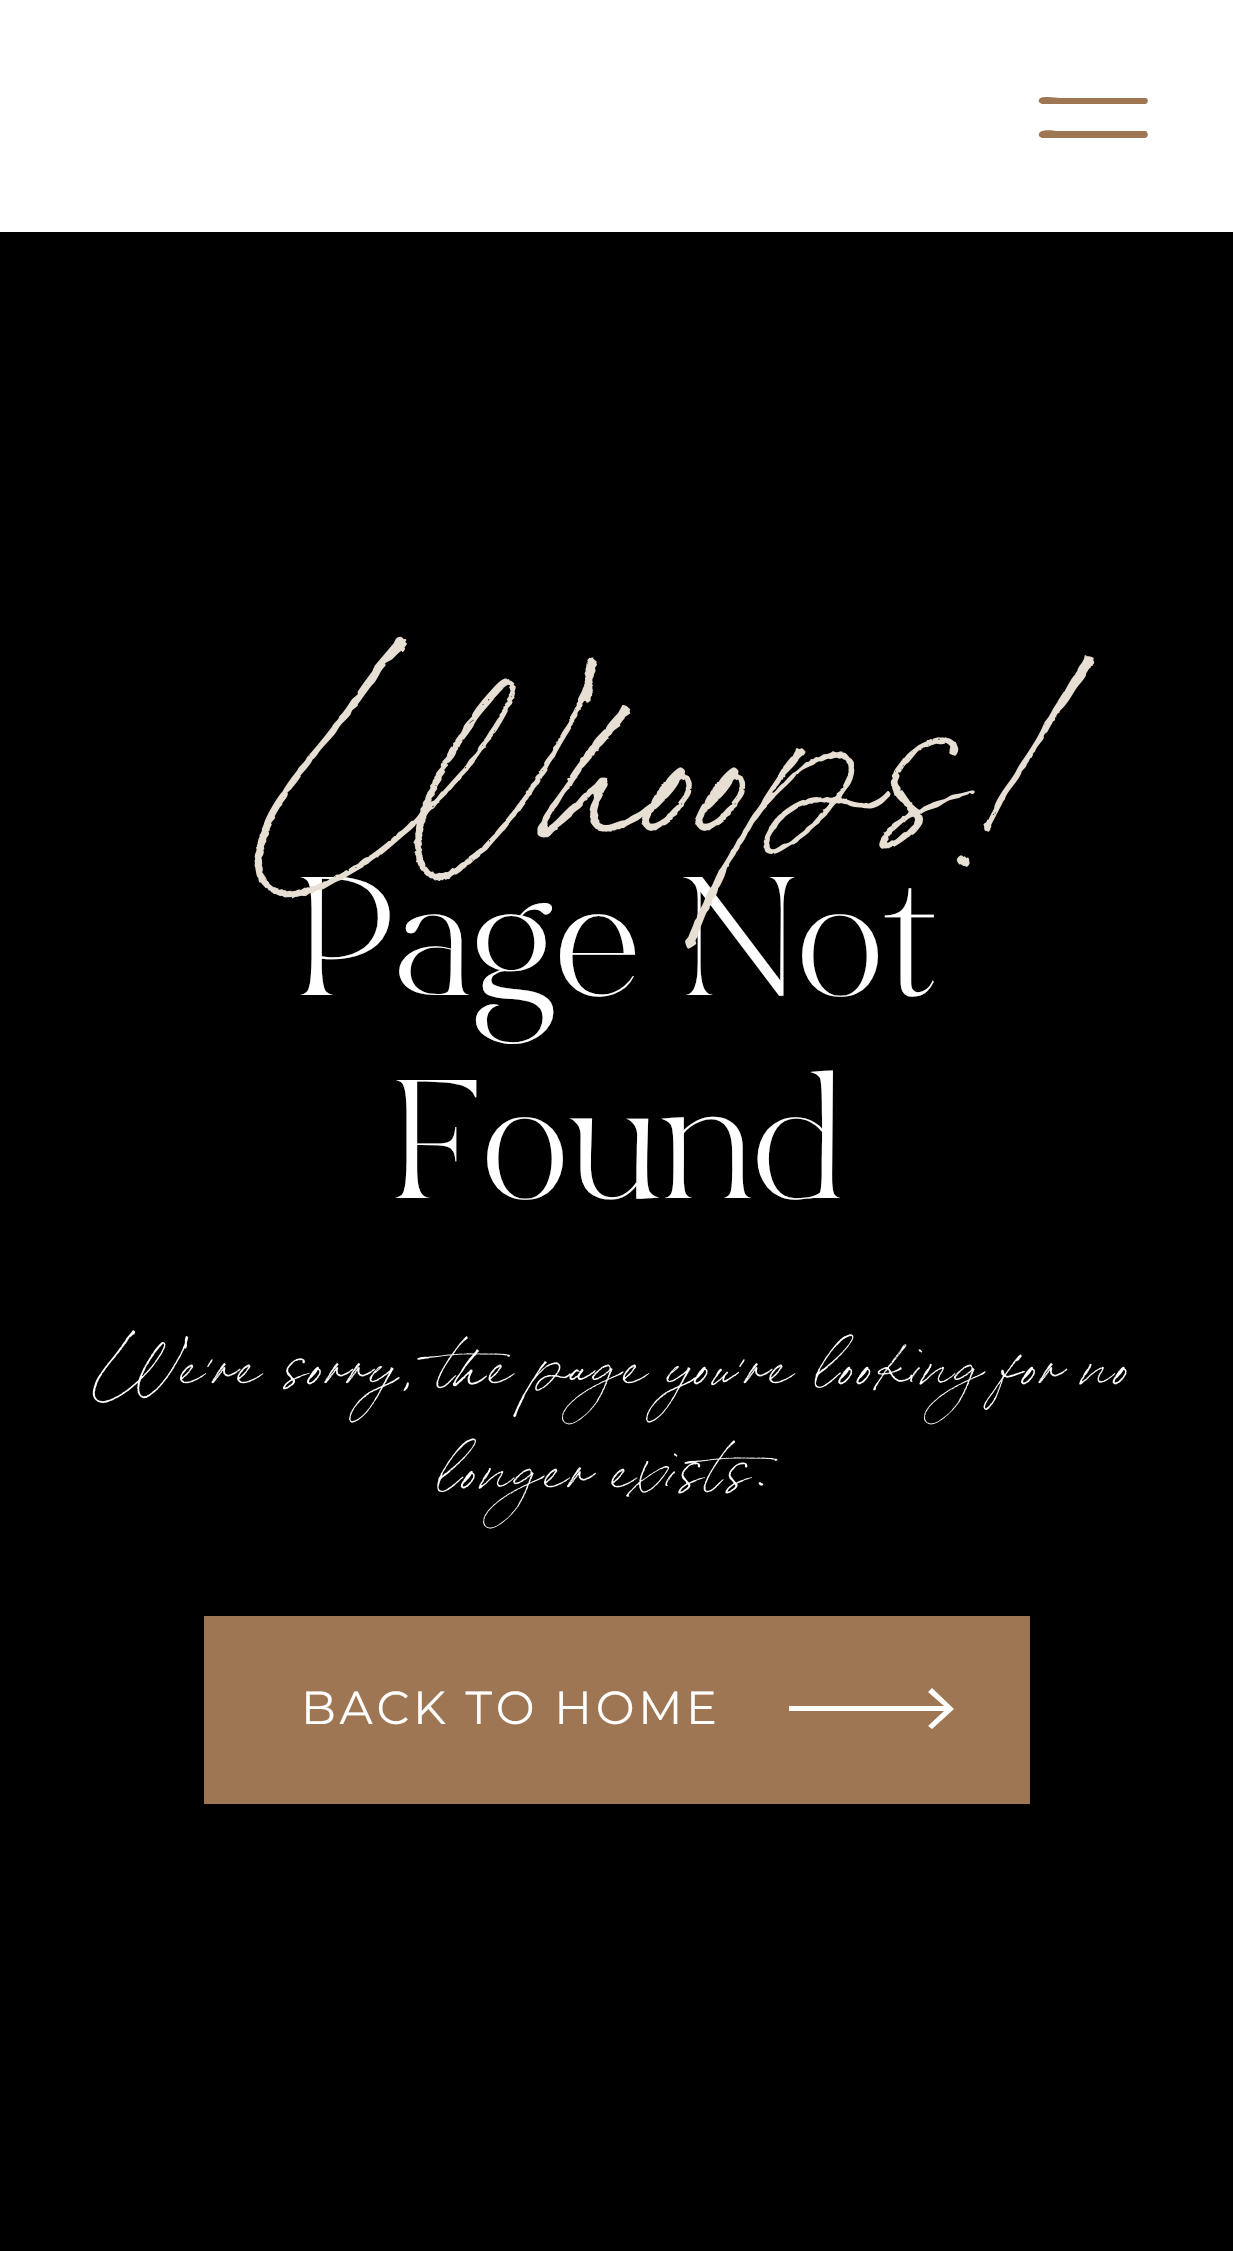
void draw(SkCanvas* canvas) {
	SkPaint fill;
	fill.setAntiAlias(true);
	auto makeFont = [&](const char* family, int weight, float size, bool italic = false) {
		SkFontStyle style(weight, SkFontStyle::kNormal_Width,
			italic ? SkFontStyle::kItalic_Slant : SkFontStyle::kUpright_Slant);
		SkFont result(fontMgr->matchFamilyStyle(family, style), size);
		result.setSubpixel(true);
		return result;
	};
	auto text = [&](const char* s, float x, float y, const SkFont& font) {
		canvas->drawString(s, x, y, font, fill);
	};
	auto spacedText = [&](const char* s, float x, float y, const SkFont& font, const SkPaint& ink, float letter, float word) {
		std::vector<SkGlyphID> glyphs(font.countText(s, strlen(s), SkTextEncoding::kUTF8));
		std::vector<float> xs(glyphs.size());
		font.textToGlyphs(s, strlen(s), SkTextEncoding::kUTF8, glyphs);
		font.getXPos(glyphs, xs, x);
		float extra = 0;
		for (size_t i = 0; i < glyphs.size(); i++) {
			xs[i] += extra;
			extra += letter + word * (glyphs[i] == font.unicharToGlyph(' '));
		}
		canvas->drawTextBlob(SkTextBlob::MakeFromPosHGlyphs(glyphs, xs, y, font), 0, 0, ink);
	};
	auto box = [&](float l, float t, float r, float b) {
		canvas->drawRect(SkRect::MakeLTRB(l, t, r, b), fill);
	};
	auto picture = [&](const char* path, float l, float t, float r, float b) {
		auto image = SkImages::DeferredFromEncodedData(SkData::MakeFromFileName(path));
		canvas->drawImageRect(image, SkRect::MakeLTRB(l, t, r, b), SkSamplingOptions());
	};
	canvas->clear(0xFFFFFFFF);
	fill.setColor(0xFF9E7653);
	canvas->drawPath(SkPathBuilder().moveTo(1145, 104).lineTo(1042, 104).lineTo(1040, 103).cubicTo(1039, 102, 1038, 101, 1039, 100).cubicTo(1040, 95, 1055, 98, 1059, 98).lineTo(1146, 98).cubicTo(1149, 99, 1148, 104, 1145, 104).close().detach(), fill);
	canvas->drawPath(SkPathBuilder().moveTo(1145, 138).lineTo(1042, 138).lineTo(1040, 137).cubicTo(1039, 136, 1038, 135, 1039, 134).cubicTo(1040, 128, 1055, 131, 1059, 131).lineTo(1146, 131).cubicTo(1149, 133, 1148, 138, 1145, 138).close().detach(), fill);
	fill.setColor(0xFF000000);
	box(0, 232, 1233, 2251);
	picture("image1.png", 92, 1330, 1127, 1425);
	picture("image2.png", 437, 1438, 778, 1529);
	fill.setColor(0xFF9E7653);
	box(204, 1616, 1030, 1804);
	fill.setColor(0xFFFFFFFF);
	canvas->drawPath(SkPathBuilder().moveTo(932, 1688).lineTo(928, 1692).lineTo(944, 1706).lineTo(789, 1706).lineTo(789, 1711).lineTo(944, 1711).lineTo(928, 1726).lineTo(932, 1729).lineTo(954, 1709).close().detach(), fill);
	auto font1 = makeFont("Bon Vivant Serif", 400, 169.5f);
	text("Page Not", 297, 995, font1);
	picture("image0.png", 254, 636, 1095, 949);
	text("Found", 392, 1198, font1);
	auto font2 = makeFont("Montserrat", 400, 46.25f);
	spacedText("BACK TO HOME", 301, 1724, font2, fill, 3.75f, 0);
}
